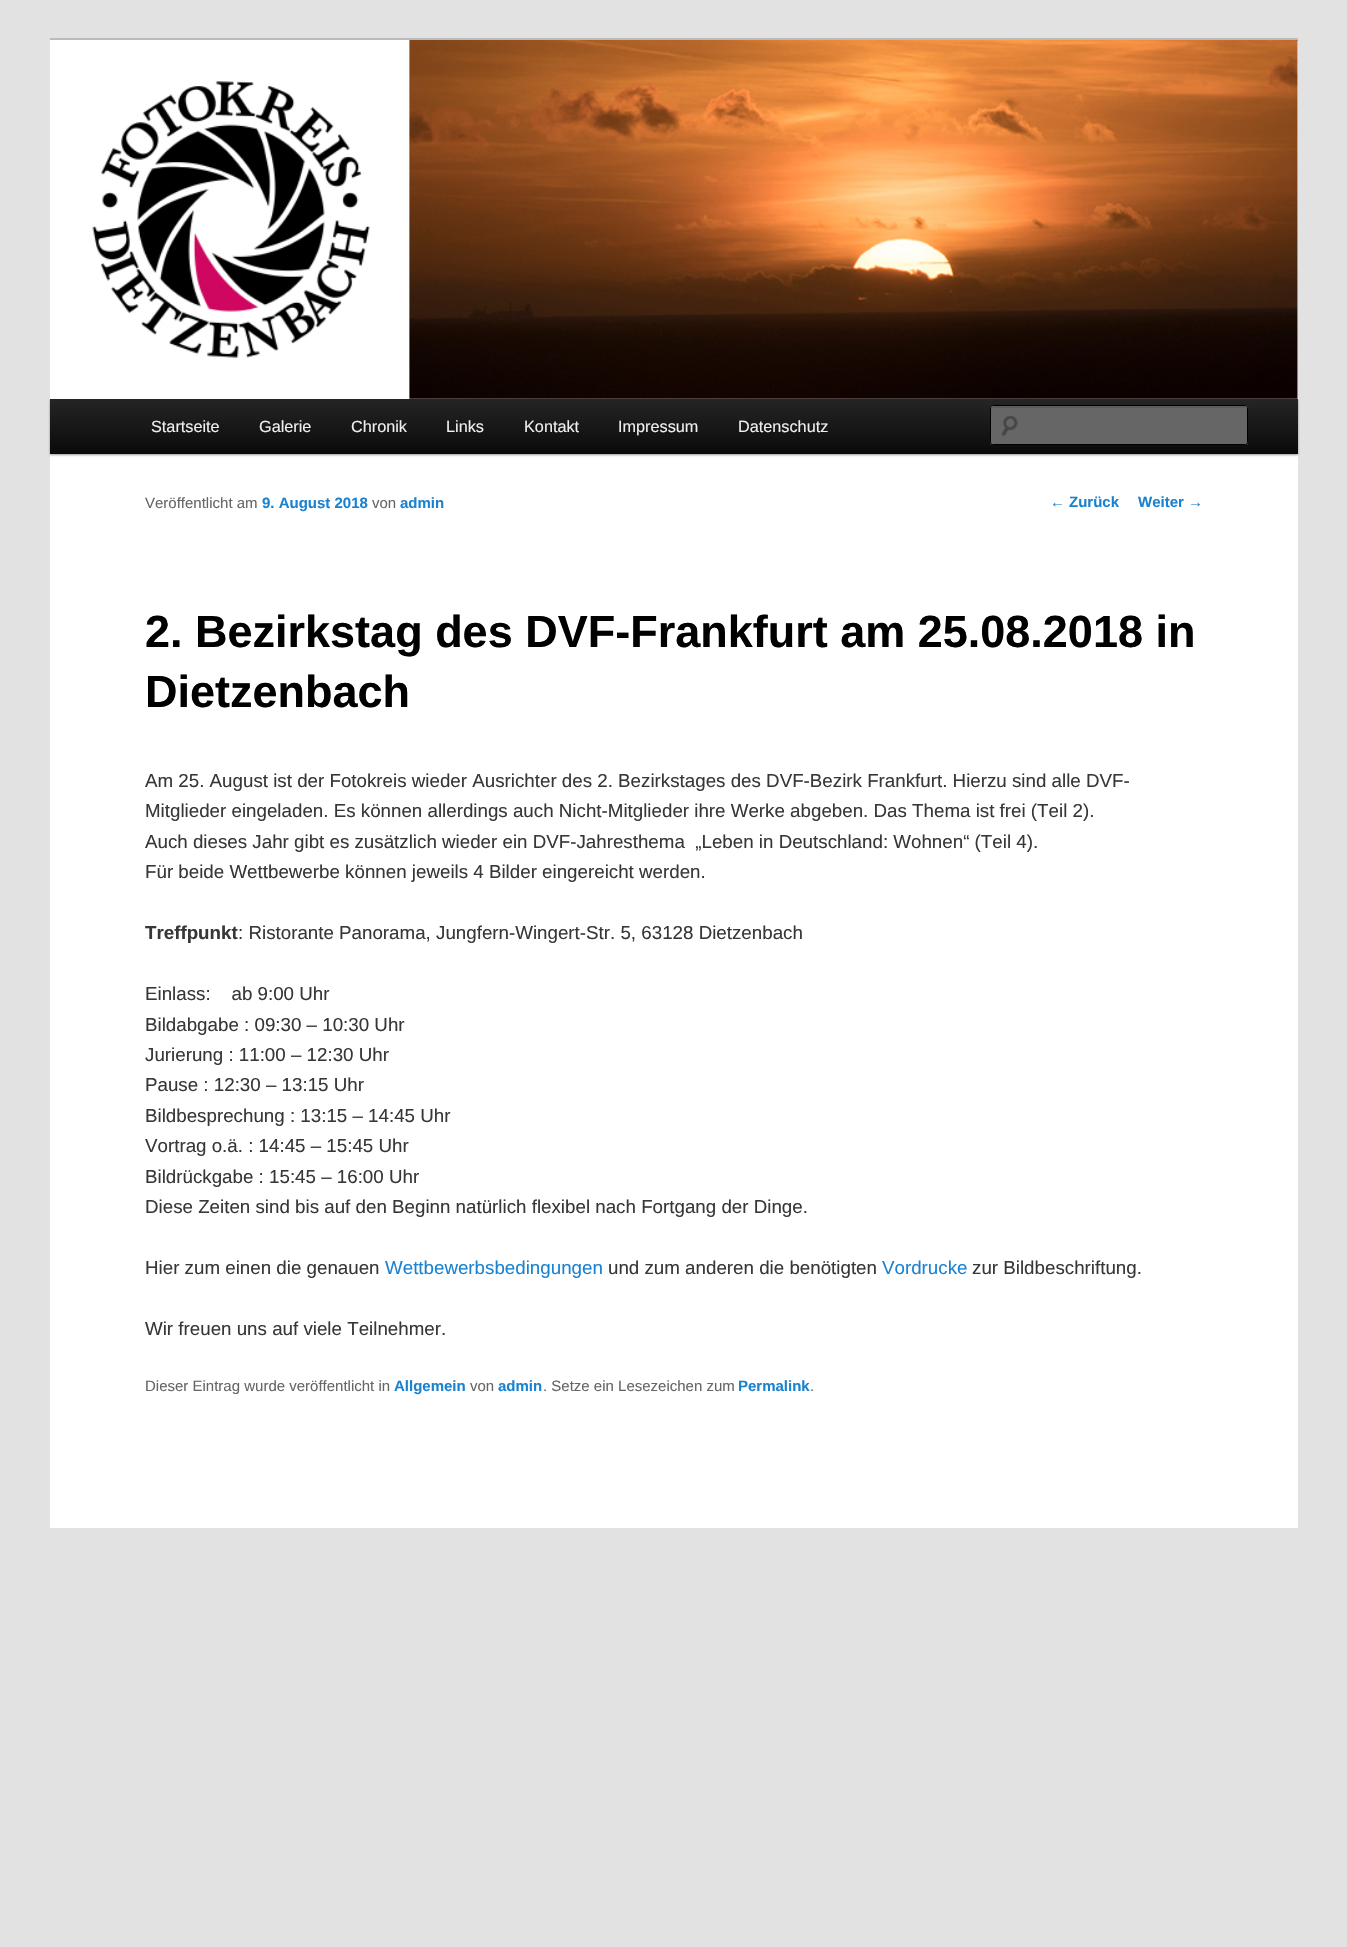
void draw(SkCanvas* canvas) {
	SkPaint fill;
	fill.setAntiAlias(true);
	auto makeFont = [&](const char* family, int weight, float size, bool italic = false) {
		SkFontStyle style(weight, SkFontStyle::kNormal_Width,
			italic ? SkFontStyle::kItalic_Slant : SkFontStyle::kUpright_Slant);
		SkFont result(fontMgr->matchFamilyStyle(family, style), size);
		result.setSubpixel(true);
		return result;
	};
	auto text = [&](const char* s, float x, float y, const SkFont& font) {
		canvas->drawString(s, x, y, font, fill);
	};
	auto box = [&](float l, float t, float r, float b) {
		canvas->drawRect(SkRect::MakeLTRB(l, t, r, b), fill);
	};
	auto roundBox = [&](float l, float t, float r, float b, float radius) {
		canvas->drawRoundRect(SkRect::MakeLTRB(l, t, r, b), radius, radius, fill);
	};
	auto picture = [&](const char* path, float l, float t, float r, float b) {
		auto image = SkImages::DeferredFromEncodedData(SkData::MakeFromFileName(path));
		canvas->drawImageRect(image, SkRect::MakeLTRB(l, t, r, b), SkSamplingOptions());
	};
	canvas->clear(0xFFE2E2E2);
	fill.setColor(0xFFFFFFFF);
	box(50, 41, 1298, 1528);
	fill.setColor(0xFFBBBBBB);
	box(50, 38, 1298, 41);
	fill.setColor(0x66000000);
	fill.setMaskFilter(SkMaskFilter::MakeBlur(kNormal_SkBlurStyle, 1));
	canvas->drawRect(SkRect::MakeLTRB(50, 400, 1298, 455), fill);
	fill.setMaskFilter(nullptr);
	picture("image0.png", 50, 40, 1298, 399);
	{
		const SkColor colors[] = {0xFF252525, 0xFF0A0A0A};
		const float stops[] = {0, 1};
		const SkPoint ends[] = {{674, 399}, {674, 454}};
		fill.setShader(SkGradientShader::MakeLinear(ends, colors, stops, 2, SkTileMode::kClamp));
		fill.setAlpha(255);
	}
	box(50, 399, 1298, 454);
	fill.setShader(nullptr);
	fill.setColor(0xFF666666);
	roundBox(990, 405, 1248, 445, 2.5f);
	picture("image1.png", 1001, 415, 1018, 437);
	fill.setColor(0xFF5C5C5C);
	canvas->drawPath(SkPathBuilder().moveTo(992, 408).lineTo(1245, 408).cubicTo(1246, 408, 1246, 408, 1246, 409).lineTo(1246, 406).lineTo(992, 406).cubicTo(991, 406, 991, 408, 991, 409).close().detach(), fill);
	fill.setStyle(SkPaint::kStroke_Style);
	fill.setStrokeWidth(1);
	fill.setColor(0xFF000000);
	canvas->drawRoundRect(SkRect::MakeLTRB(990.5f, 405.5f, 1247.5f, 444.5f), 2, 2, fill);
	auto font1 = makeFont("Liberation Sans", 400, 16.25f);
	fill.setStyle(SkPaint::kFill_Style);
	fill.setColor(0xFFEEEEEE);
	text("Startseite", 151, 432, font1);
	text("Galerie", 259, 432, font1);
	text("Chronik", 351, 432, font1);
	text("Links", 446, 432, font1);
	text("Kontakt", 524, 432, font1);
	text("Impressum", 618, 432, font1);
	text("Datenschutz", 738, 432, font1);
	auto font2 = makeFont("Liberation Sans", 400, 15);
	fill.setColor(0xFF1982D1);
	text("←", 1050, 507, font2);
	auto font3 = makeFont("Liberation Sans", 700, 15);
	text("Zurück", 1069, 507, font3);
	text("Weiter", 1138, 507, font3);
	text("→", 1188, 507, font2);
	fill.setColor(0xFF666666);
	text("Veröffentlicht am", 145, 508, font2);
	fill.setColor(0xFF1982D1);
	text("9. August 2018", 262, 508, font3);
	fill.setColor(0xFF666666);
	text("von", 372, 508, font2);
	fill.setColor(0xFF1982D1);
	text("admin", 400, 508, font3);
	auto font4 = makeFont("Liberation Sans", 700, 45);
	fill.setColor(0xFF000000);
	text("2. Bezirkstag des DVF-Frankfurt am 25.08.2018 in", 145, 647, font4);
	text("Dietzenbach", 145, 707, font4);
	auto font5 = makeFont("Liberation Sans", 400, 18.75f);
	fill.setColor(0xFF373737);
	text("Am 25. August ist der Fotokreis wieder Ausrichter des 2. Bezirkstages des DVF-Bezirk Frankfurt. Hierzu sind alle DVF-", 145, 787, font5);
	text("Mitglieder eingeladen. Es können allerdings auch Nicht-Mitglieder ihre Werke abgeben. Das Thema ist frei (Teil 2).", 145, 817, font5);
	text("Auch dieses Jahr gibt es zusätzlich wieder ein DVF-Jahresthema  „Leben in Deutschland: Wohnen“ (Teil 4).", 145, 848, font5);
	text("Für beide Wettbewerbe können jeweils 4 Bilder eingereicht werden.", 145, 878, font5);
	auto font6 = makeFont("Liberation Sans", 700, 18.75f);
	text("Treffpunkt", 145, 939, font6);
	text(": Ristorante Panorama, Jungfern-Wingert-Str. 5, 63128 Dietzenbach", 238, 939, font5);
	text("Einlass:    ab 9:00 Uhr", 145, 1000, font5);
	text("Bildabgabe : 09:30 – 10:30 Uhr", 145, 1031, font5);
	text("Jurierung : 11:00 – 12:30 Uhr", 145, 1061, font5);
	text("Pause : 12:30 – 13:15 Uhr", 145, 1091, font5);
	text("Bildbesprechung : 13:15 – 14:45 Uhr", 145, 1122, font5);
	text("Vortrag o.ä. : 14:45 – 15:45 Uhr", 145, 1152, font5);
	text("Bildrückgabe : 15:45 – 16:00 Uhr", 145, 1183, font5);
	text("Diese Zeiten sind bis auf den Beginn natürlich flexibel nach Fortgang der Dinge.", 145, 1213, font5);
	text("Hier zum einen die genauen", 145, 1274, font5);
	fill.setColor(0xFF1982D1);
	text("Wettbewerbsbedingungen", 385, 1274, font5);
	fill.setColor(0xFF373737);
	text("und zum anderen die benötigten", 608, 1274, font5);
	fill.setColor(0xFF1982D1);
	text("Vordrucke", 882, 1274, font5);
	fill.setColor(0xFF373737);
	text("zur Bildbeschriftung.", 972, 1274, font5);
	text("Wir freuen uns auf viele Teilnehmer.", 145, 1335, font5);
	fill.setColor(0xFF666666);
	text("Dieser Eintrag wurde veröffentlicht in", 145, 1391, font2);
	fill.setColor(0xFF1982D1);
	text("Allgemein", 394, 1391, font3);
	fill.setColor(0xFF666666);
	text("von", 470, 1391, font2);
	fill.setColor(0xFF1982D1);
	text("admin", 498, 1391, font3);
	fill.setColor(0xFF666666);
	text(". Setze ein Lesezeichen zum", 543, 1391, font2);
	fill.setColor(0xFF1982D1);
	text("Permalink", 738, 1391, font3);
	fill.setColor(0xFF666666);
	text(".", 810, 1391, font2);
}
